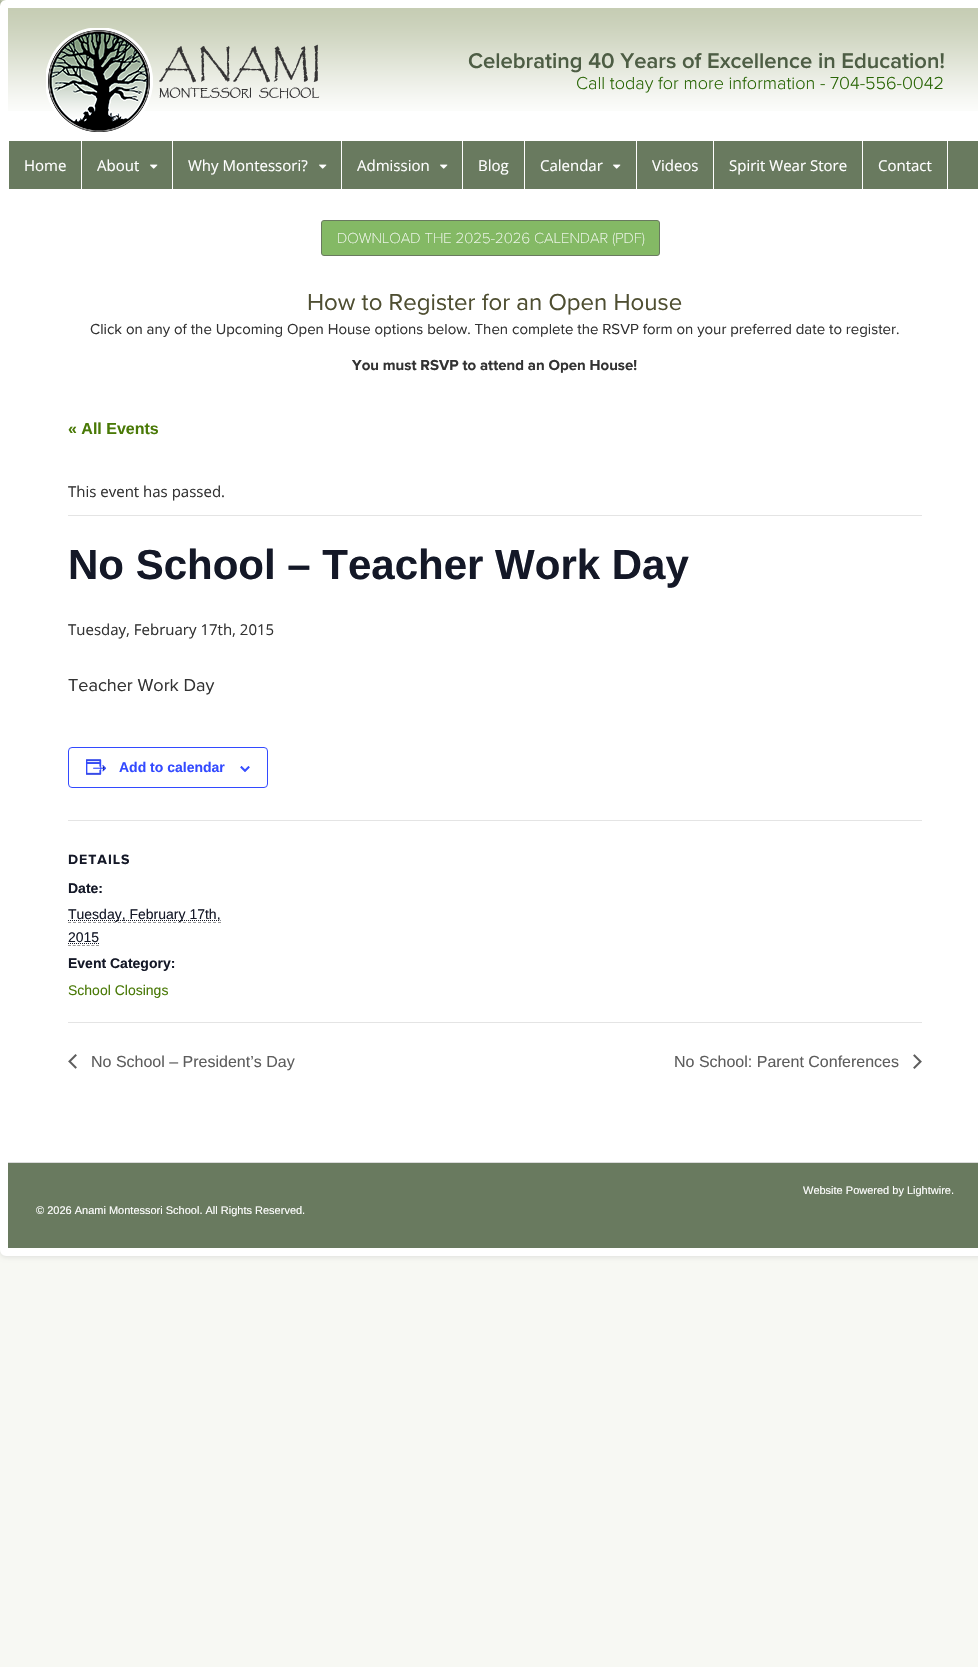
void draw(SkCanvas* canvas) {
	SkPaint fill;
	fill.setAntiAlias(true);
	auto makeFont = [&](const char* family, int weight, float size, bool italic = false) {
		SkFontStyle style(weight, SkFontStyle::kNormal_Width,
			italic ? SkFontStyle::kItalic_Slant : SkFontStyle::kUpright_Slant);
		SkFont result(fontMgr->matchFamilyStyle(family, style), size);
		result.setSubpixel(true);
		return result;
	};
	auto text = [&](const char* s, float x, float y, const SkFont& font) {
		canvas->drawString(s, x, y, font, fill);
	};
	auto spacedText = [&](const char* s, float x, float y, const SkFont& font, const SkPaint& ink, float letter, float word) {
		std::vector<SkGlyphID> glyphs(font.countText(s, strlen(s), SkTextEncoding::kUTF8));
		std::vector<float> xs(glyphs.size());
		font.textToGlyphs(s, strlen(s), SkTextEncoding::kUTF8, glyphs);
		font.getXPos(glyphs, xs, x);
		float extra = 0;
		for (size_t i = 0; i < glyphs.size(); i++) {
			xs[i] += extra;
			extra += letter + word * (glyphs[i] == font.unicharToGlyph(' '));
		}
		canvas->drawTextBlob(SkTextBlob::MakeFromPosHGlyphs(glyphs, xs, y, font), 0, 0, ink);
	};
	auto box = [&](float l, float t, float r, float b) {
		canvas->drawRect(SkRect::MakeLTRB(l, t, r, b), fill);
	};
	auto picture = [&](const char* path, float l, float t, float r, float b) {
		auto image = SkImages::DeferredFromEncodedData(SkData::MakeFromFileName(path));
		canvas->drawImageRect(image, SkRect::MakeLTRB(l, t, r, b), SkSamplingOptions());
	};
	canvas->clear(0xFFF7F8F3);
	picture("image0.png", 0, 0, 6, 6);
	fill.setColor(0x1A000000);
	fill.setMaskFilter(SkMaskFilter::MakeBlur(kNormal_SkBlurStyle, 2.5f));
	canvas->drawRoundRect(SkRect::MakeLTRB(0, 1, 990, 1257), 6, 6, fill);
	fill.setMaskFilter(nullptr);
	fill.setColor(0xFFFFFFFF);
	canvas->drawRoundRect(SkRect::MakeLTRB(4, 4, 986, 1252), 2, 2, fill);
	fill.setStyle(SkPaint::kStroke_Style);
	fill.setStrokeWidth(8);
	canvas->drawRoundRect(SkRect::MakeLTRB(4, 4, 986, 1252), 2, 2, fill);
	picture("image1.png", 8, 8, 978, 111);
	picture("image2.png", 46, 28, 320, 132);
	fill.setStyle(SkPaint::kFill_Style);
	fill.setColor(0xFF697A5F);
	box(9, 141, 978, 189);
	fill.setColor(0xFFFFFFFF);
	box(81, 141, 82, 189);
	box(172, 141, 173, 189);
	picture("image3.png", 150, 164, 158, 169);
	box(341, 141, 342, 189);
	picture("image3.png", 319, 164, 327, 169);
	box(462, 141, 463, 189);
	picture("image3.png", 440, 164, 448, 169);
	box(524, 141, 525, 189);
	box(636, 141, 637, 189);
	picture("image3.png", 613, 164, 621, 169);
	box(713, 141, 714, 189);
	box(862, 141, 863, 189);
	box(947, 141, 948, 189);
	fill.setColor(0xFF84B965);
	canvas->drawRoundRect(SkRect::MakeLTRB(321.5f, 220.5f, 659.5f, 255.5f), 2.5f, 2.5f, fill);
	fill.setStyle(SkPaint::kStroke_Style);
	fill.setStrokeWidth(1);
	fill.setColor(0xFF697A5F);
	canvas->drawRoundRect(SkRect::MakeLTRB(321.5f, 220.5f, 659.5f, 255.5f), 2.5f, 2.5f, fill);
	fill.setStyle(SkPaint::kFill_Style);
	fill.setColor(0xFFE4E4E4);
	box(68, 515, 922, 516);
	fill.setStyle(SkPaint::kStroke_Style);
	fill.setColor(0xFF334AFF);
	canvas->drawRoundRect(SkRect::MakeLTRB(68.5f, 747.5f, 267.5f, 787.5f), 3.5f, 3.5f, fill);
	picture("image4.png", 86, 759, 107, 775);
	picture("image5.png", 240, 766, 250, 772);
	fill.setStyle(SkPaint::kFill_Style);
	fill.setColor(0xFFE4E4E4);
	box(68, 820, 922, 821);
	fill.setStyle(SkPaint::kStroke_Style);
	fill.setColor(0xFF999999);
	fill.setPathEffect(SkDashPathEffect::Make({{3, 2}}, 0));
	canvas->drawPath(SkPathBuilder().moveTo(68, 922.5f).lineTo(221, 922.5f).detach(), fill);
	fill.setPathEffect(nullptr);
	fill.setColor(0xFF141827);
	fill.setPathEffect(SkDashPathEffect::Make({{1, 1}}, 0));
	canvas->drawPath(SkPathBuilder().moveTo(68, 920.5f).lineTo(220.5f, 920.5f).detach(), fill);
	fill.setPathEffect(nullptr);
	fill.setColor(0xFF999999);
	fill.setPathEffect(SkDashPathEffect::Make({{3, 1.67f}}, 0));
	canvas->drawPath(SkPathBuilder().moveTo(68, 945.5f).lineTo(99, 945.5f).detach(), fill);
	fill.setPathEffect(nullptr);
	fill.setColor(0xFF141827);
	fill.setPathEffect(SkDashPathEffect::Make({{1, 1}}, 0));
	canvas->drawPath(SkPathBuilder().moveTo(68, 943.5f).lineTo(99, 943.5f).detach(), fill);
	fill.setPathEffect(nullptr);
	fill.setStyle(SkPaint::kFill_Style);
	fill.setColor(0xFFE4E4E4);
	box(68, 1022, 922, 1023);
	picture("image6.png", 68, 1054, 77, 1069);
	picture("image7.png", 913, 1054, 922, 1069);
	fill.setColor(0xFF697A5F);
	box(8, 1163, 978, 1248);
	fill.setColor(0xFFDBDBDB);
	box(8, 1162, 978, 1163);
	auto font1 = makeFont("Proxima Nova", 600, 22);
	fill.setColor(0xFF4D5D44);
	text("Celebrating 40 Years of Excellence in Education!", 468, 68, font1);
	auto font2 = makeFont("Proxima Nova", 300, 18);
	fill.setColor(0xFF296605);
	text("Call today for more information - 704-556-0042", 576, 89, font2);
	auto font3 = makeFont("Open Sans", 400, 15);
	fill.setColor(0xFFFFFFFF);
	text("Home", 24, 171, font3);
	text("About", 97, 171, font3);
	text("Why Montessori?", 188, 171, font3);
	text("Admission", 357, 171, font3);
	text("Blog", 478, 171, font3);
	text("Calendar", 540, 171, font3);
	text("Videos", 652, 171, font3);
	text("Spirit Wear Store", 729, 171, font3);
	text("Contact", 878, 171, font3);
	auto font4 = makeFont("Proxima Nova", 100, 15);
	text("DOWNLOAD THE 2025-2026 CALENDAR (PDF)", 337, 243, font4);
	auto font5 = makeFont("Proxima Nova", 400, 24);
	fill.setColor(0xFF4E4E31);
	text("How to Register for an Open House", 307, 310, font5);
	auto font6 = makeFont("Proxima Nova", 400, 15);
	fill.setColor(0xFF333333);
	text("Click on any of the Upcoming Open House options below. Then complete the RSVP form on your preferred date to register.", 90, 334, font6);
	auto font7 = makeFont("Proxima Nova", 700, 15);
	text("You must RSVP to attend an Open House!", 352, 370, font7);
	auto font8 = makeFont("Liberation Sans", 700, 16);
	fill.setColor(0xFF497906);
	text("« All Events", 68, 434, font8);
	fill.setColor(0xFF333333);
	text("This event has passed.", 68, 497, font3);
	auto font9 = makeFont("Liberation Sans", 700, 42);
	fill.setColor(0xFF141827);
	text("No School – Teacher Work Day", 68, 579, font9);
	fill.setColor(0xFF333333);
	text("Tuesday, February 17th, 2015", 68, 635, font3);
	auto font10 = makeFont("Proxima Nova", 400, 18);
	text("Teacher Work Day", 68, 691, font10);
	auto font11 = makeFont("Liberation Sans", 700, 14);
	fill.setColor(0xFF334AFF);
	text("Add to calendar", 119, 772, font11);
	auto font12 = makeFont("Proxima Nova", 700, 14);
	fill.setColor(0xFF141827);
	spacedText("DETAILS", 68, 864, font12, fill, 1, 0);
	text("Date:", 68, 893, font11);
	auto font13 = makeFont("Liberation Sans", 400, 14);
	text("Tuesday, February 17th,", 68, 919, font13);
	text("2015", 68, 942, font13);
	text("Event Category:", 68, 968, font11);
	fill.setColor(0xFF497906);
	text("School Closings", 68, 995, font13);
	auto font14 = makeFont("Liberation Sans", 400, 16);
	fill.setColor(0xFF5D5D5D);
	text("No School – President’s Day", 91, 1067, font14);
	text("No School: Parent Conferences", 674, 1067, font14);
	auto font15 = makeFont("Liberation Sans", 400, 11);
	fill.setColor(0xFFFFFFFF);
	text("Website Powered by Lightwire.", 803, 1194, font15);
	text("© 2026 Anami Montessori School. All Rights Reserved.", 36, 1214, font15);
}
